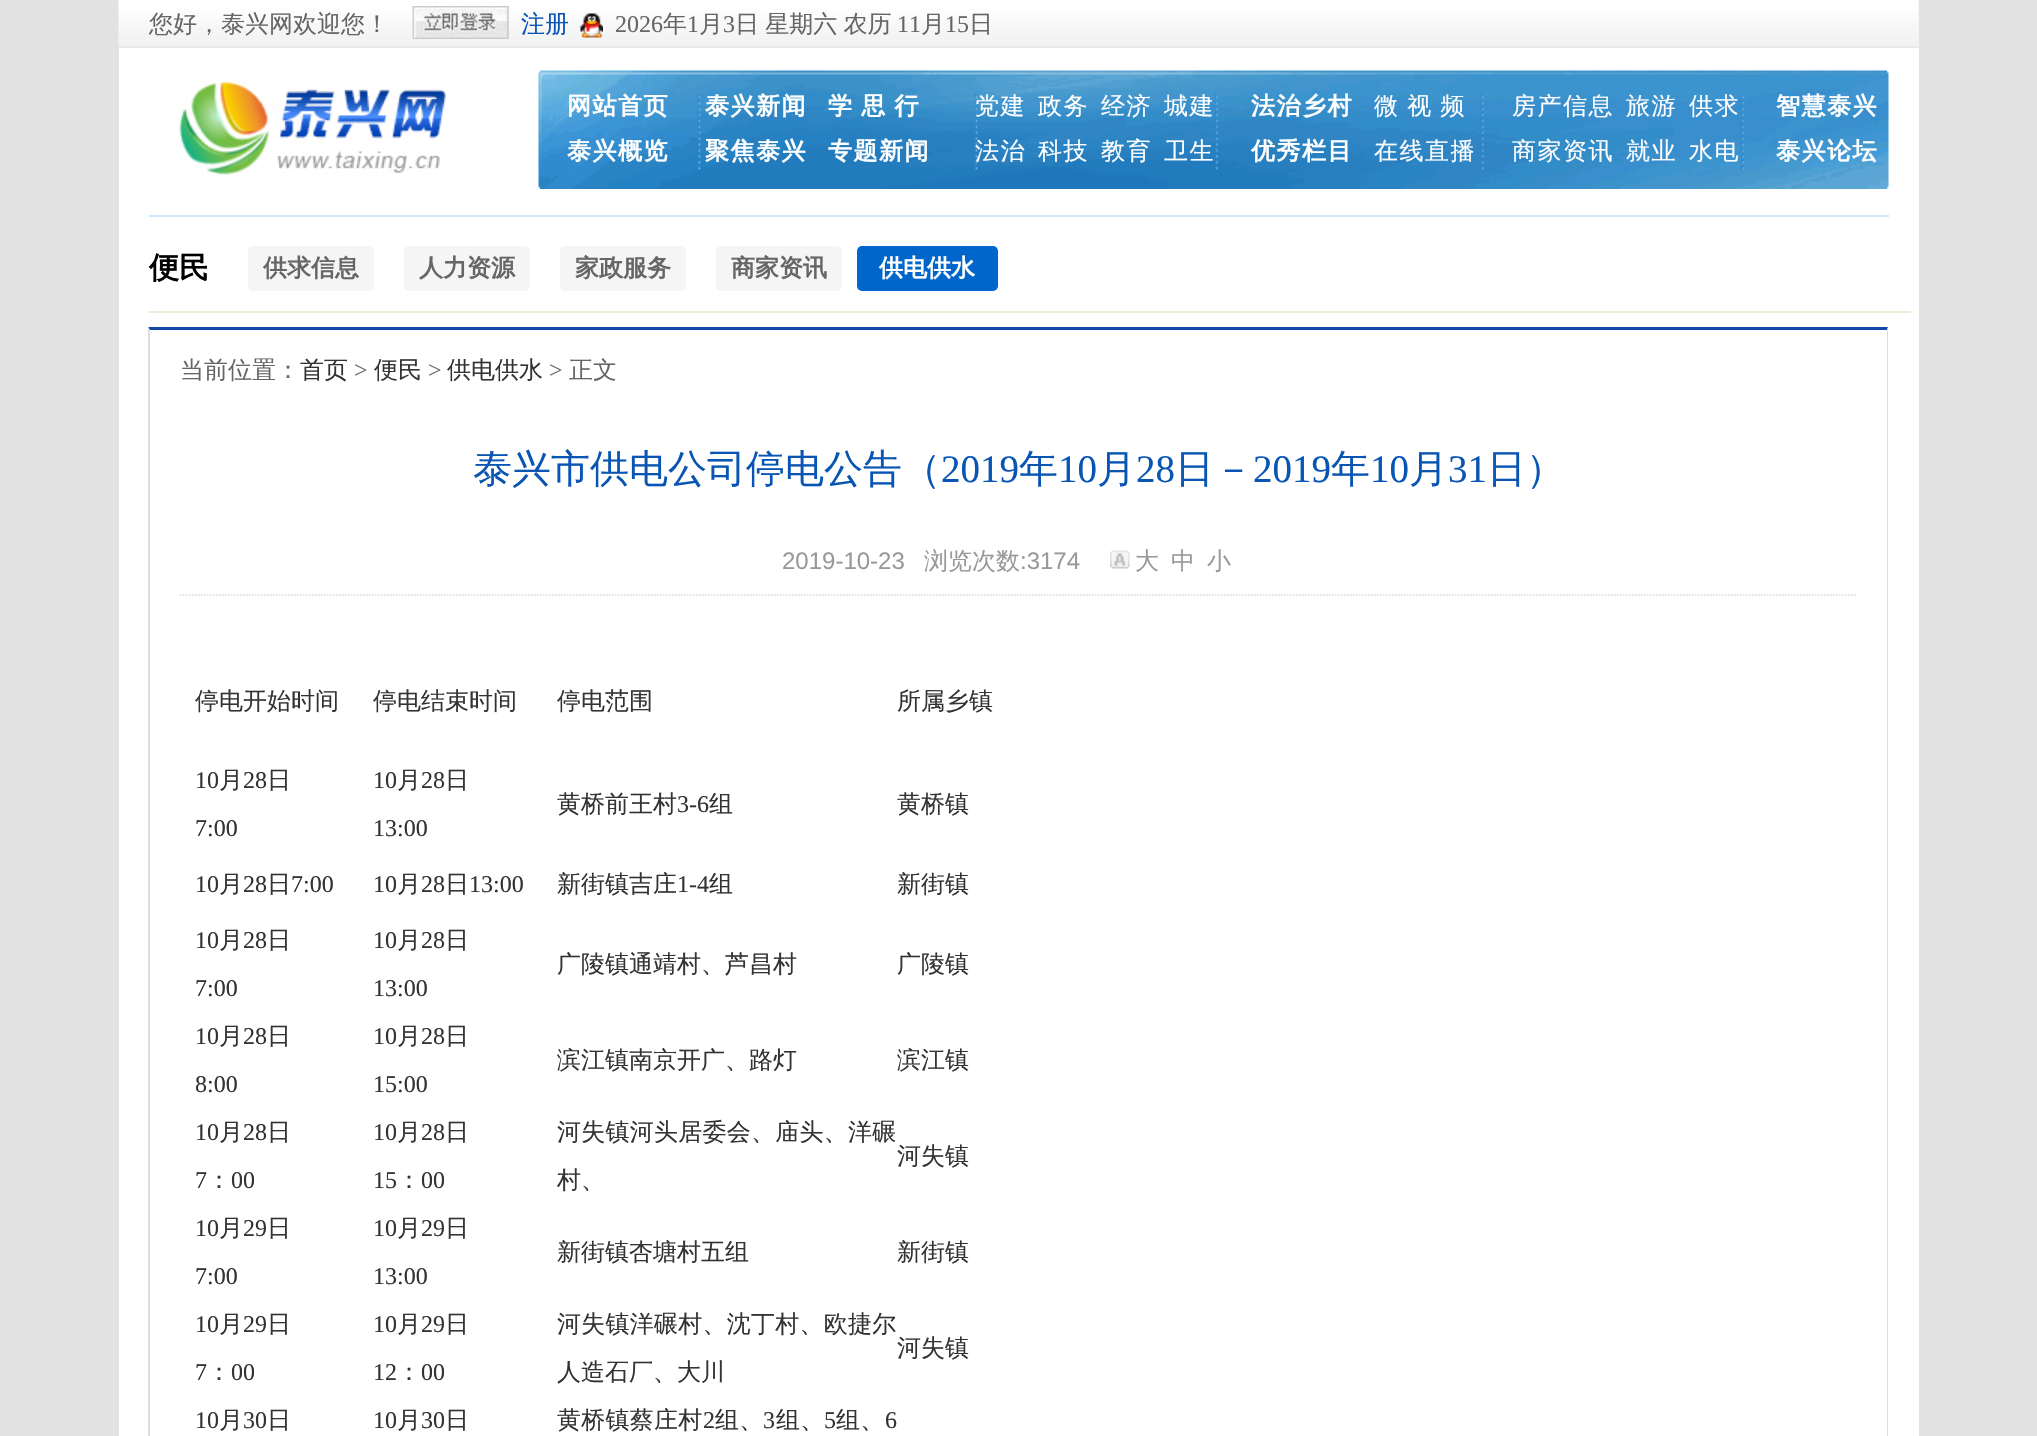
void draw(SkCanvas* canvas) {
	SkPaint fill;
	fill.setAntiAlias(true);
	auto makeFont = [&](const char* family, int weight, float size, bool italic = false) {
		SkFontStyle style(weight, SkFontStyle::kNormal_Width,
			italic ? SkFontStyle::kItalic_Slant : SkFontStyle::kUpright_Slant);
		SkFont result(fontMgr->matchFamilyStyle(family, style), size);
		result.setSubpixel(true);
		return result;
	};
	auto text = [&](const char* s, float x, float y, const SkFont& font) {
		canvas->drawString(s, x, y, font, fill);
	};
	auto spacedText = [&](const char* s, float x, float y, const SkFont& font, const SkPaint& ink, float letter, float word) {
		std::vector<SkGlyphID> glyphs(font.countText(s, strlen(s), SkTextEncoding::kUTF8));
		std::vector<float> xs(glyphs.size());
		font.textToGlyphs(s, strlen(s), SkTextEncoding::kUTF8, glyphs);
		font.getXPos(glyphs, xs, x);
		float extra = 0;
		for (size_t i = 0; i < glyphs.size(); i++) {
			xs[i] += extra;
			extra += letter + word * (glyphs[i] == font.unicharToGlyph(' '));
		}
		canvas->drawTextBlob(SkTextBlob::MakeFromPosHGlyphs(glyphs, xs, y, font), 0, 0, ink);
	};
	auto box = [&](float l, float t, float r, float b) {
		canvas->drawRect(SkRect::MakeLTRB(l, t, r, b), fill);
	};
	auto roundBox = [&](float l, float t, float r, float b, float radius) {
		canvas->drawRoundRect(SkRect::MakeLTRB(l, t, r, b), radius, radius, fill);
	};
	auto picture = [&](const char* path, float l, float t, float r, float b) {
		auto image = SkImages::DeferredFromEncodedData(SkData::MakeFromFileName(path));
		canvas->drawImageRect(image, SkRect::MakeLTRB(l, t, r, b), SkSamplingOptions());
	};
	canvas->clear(0xFFE3E2E2);
	fill.setColor(0xFFF4F4F4);
	box(119, 0, 1919, 48);
	picture("image0.png", 118, 0, 1919, 48);
	fill.setColor(0xFFDDDDDD);
	box(508, 6, 509, 39);
	picture("image1.png", 412, 6, 509, 39);
	picture("image2.png", 580, 13, 603, 38);
	fill.setColor(0xFFFFFFFF);
	box(119, 48, 1919, 1436);
	picture("image3.png", 179, 80, 446, 175);
	picture("image4.png", 538, 70, 1889, 189);
	fill.setColor(0xFFCEE7FF);
	box(149, 215, 1889, 217);
	fill.setColor(0xFFE5EFD6);
	box(149, 311, 1911, 313);
	fill.setColor(0xFFF5F5F5);
	roundBox(248, 246, 374, 291, 5);
	roundBox(404, 246, 530, 291, 5);
	roundBox(560, 246, 686, 291, 5);
	roundBox(716, 246, 842, 291, 5);
	fill.setColor(0xFF0066CC);
	roundBox(857, 246, 998, 291, 5);
	fill.setColor(0xFF1247A9);
	canvas->drawPath(SkPathBuilder().moveTo(148, 327).lineTo(1888, 327).lineTo(1887, 330).lineTo(150, 330).close().detach(), fill);
	fill.setColor(0xFFDDDDDD);
	canvas->drawPath(SkPathBuilder().moveTo(1888, 327).lineTo(1888, 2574).lineTo(1887, 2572).lineTo(1887, 330).close().detach(), fill);
	canvas->drawPath(SkPathBuilder().moveTo(148, 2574).lineTo(148, 327).lineTo(150, 330).lineTo(150, 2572).close().detach(), fill);
	fill.setStyle(SkPaint::kStroke_Style);
	fill.setStrokeWidth(1.5f);
	fill.setColor(0xFFD6D6D6);
	fill.setPathEffect(SkDashPathEffect::Make({{1.5f, 1.5f}}, 0));
	canvas->drawPath(SkPathBuilder().moveTo(180, 595).lineTo(1857, 595).detach(), fill);
	fill.setPathEffect(nullptr);
	picture("image5.png", 1110, 550, 1130, 569);
	auto font1 = makeFont("WenQuanYi Zen Hei", 500, 24);
	fill.setStyle(SkPaint::kFill_Style);
	fill.setColor(0xFF666666);
	text("您好，泰兴网欢迎您！", 149, 32, font1);
	fill.setColor(0xFF0855B3);
	text("注册", 521, 32, font1);
	auto font2 = makeFont("Liberation Serif", 400, 24);
	fill.setColor(0xFF666666);
	text("2026", 615, 32, font2);
	text("年", 663, 32, font1);
	text("1", 687, 32, font2);
	text("月", 699, 32, font1);
	text("3", 723, 32, font2);
	spacedText("日 星期六 农历", 735, 32, font1, fill, 0, -1);
	text("11", 897, 32, font2);
	text("月", 921, 32, font1);
	text("15", 945, 32, font2);
	text("日", 969, 32, font1);
	auto font3 = makeFont("WenQuanYi Zen Hei", 700, 24);
	fill.setColor(0xFFFFFFFF);
	spacedText("网站首页", 567, 114, font3, fill, 1.5f, 0);
	spacedText("泰兴概览", 567, 159, font3, fill, 1.5f, 0);
	spacedText("泰兴新闻", 705, 114, font3, fill, 1.5f, 0);
	spacedText("学 思 行", 828, 114, font3, fill, 1.5f, -1);
	spacedText("聚焦泰兴", 705, 159, font3, fill, 1.5f, 0);
	spacedText("专题新闻", 828, 159, font3, fill, 1.5f, 0);
	spacedText("党建", 975, 114, font1, fill, 1.5f, 0);
	spacedText("政务", 1038, 114, font1, fill, 1.5f, 0);
	spacedText("经济", 1101, 114, font1, fill, 1.5f, 0);
	spacedText("城建", 1164, 114, font1, fill, 1.5f, 0);
	spacedText("法治", 975, 159, font1, fill, 1.5f, 0);
	spacedText("科技", 1038, 159, font1, fill, 1.5f, 0);
	spacedText("教育", 1101, 159, font1, fill, 1.5f, 0);
	spacedText("卫生", 1164, 159, font1, fill, 1.5f, 0);
	spacedText("法治乡村", 1251, 114, font3, fill, 1.5f, 0);
	spacedText("微 视 频", 1374, 114, font1, fill, 1.5f, -1);
	spacedText("优秀栏目", 1251, 159, font3, fill, 1.5f, 0);
	spacedText("在线直播", 1374, 159, font1, fill, 1.5f, 0);
	spacedText("房产信息", 1512, 114, font1, fill, 1.5f, 0);
	spacedText("旅游", 1626, 114, font1, fill, 1.5f, 0);
	spacedText("供求", 1689, 114, font1, fill, 1.5f, 0);
	spacedText("商家资讯", 1512, 159, font1, fill, 1.5f, 0);
	spacedText("就业", 1626, 159, font1, fill, 1.5f, 0);
	spacedText("水电", 1689, 159, font1, fill, 1.5f, 0);
	spacedText("智慧泰兴", 1776, 114, font3, fill, 1.5f, 0);
	spacedText("泰兴论坛", 1776, 159, font3, fill, 1.5f, 0);
	auto font4 = makeFont("WenQuanYi Zen Hei", 700, 30);
	fill.setColor(0xFF000000);
	text("便民", 149, 278, font4);
	fill.setColor(0xFF666666);
	text("供求信息", 263, 276, font3);
	text("人力资源", 419, 276, font3);
	text("家政服务", 575, 276, font3);
	text("商家资讯", 731, 276, font3);
	fill.setColor(0xFFFFFFFF);
	text("供电供水", 879, 276, font3);
	fill.setColor(0xFF666666);
	text("当前位置：", 180, 378, font1);
	fill.setColor(0xFF333333);
	text("首页", 300, 378, font1);
	fill.setColor(0xFF666666);
	text(">", 354, 378, font2);
	fill.setColor(0xFF333333);
	text("便民", 374, 378, font1);
	fill.setColor(0xFF666666);
	text(">", 428, 378, font2);
	fill.setColor(0xFF333333);
	text("供电供水", 447, 378, font1);
	fill.setColor(0xFF666666);
	text(">", 549, 378, font2);
	text("正文", 569, 378, font1);
	auto font5 = makeFont("WenQuanYi Zen Hei", 500, 39);
	fill.setColor(0xFF0855B3);
	text("泰兴市供电公司停电公告（", 473, 482, font5);
	auto font6 = makeFont("Liberation Serif", 400, 39);
	text("2019", 941, 482, font6);
	text("年", 1019, 482, font5);
	text("10", 1058, 482, font6);
	text("月", 1097, 482, font5);
	text("28", 1136, 482, font6);
	text("日－", 1175, 482, font5);
	text("2019", 1253, 482, font6);
	text("年", 1331, 482, font5);
	text("10", 1370, 482, font6);
	text("月", 1409, 482, font5);
	text("31", 1448, 482, font6);
	text("日）", 1487, 482, font5);
	auto font7 = makeFont("Liberation Sans", 400, 24);
	fill.setColor(0xFF999999);
	text("2019-10-23", 782, 569, font7);
	text("浏览次数", 924, 569, font1);
	text(":3174", 1020, 569, font7);
	text("大", 1135, 569, font1);
	text("中", 1171, 569, font1);
	text("小", 1207, 569, font1);
	fill.setColor(0xFF333333);
	text("停电开始时间", 195, 709, font1);
	text("停电结束时间", 373, 709, font1);
	text("停电范围", 557, 709, font1);
	text("所属乡镇", 897, 709, font1);
	text("10", 195, 788, font2);
	text("月", 219, 788, font1);
	text("28", 243, 788, font2);
	text("日", 267, 788, font1);
	text("7:00", 195, 836, font2);
	text("10", 373, 788, font2);
	text("月", 397, 788, font1);
	text("28", 421, 788, font2);
	text("日", 445, 788, font1);
	text("13:00", 373, 836, font2);
	text("黄桥前王村", 557, 812, font1);
	text("3-6", 677, 812, font2);
	text("组", 709, 812, font1);
	text("黄桥镇", 897, 812, font1);
	text("10", 195, 892, font2);
	text("月", 219, 892, font1);
	text("28", 243, 892, font2);
	text("日", 267, 892, font1);
	text("7:00", 291, 892, font2);
	text("10", 373, 892, font2);
	text("月", 397, 892, font1);
	text("28", 421, 892, font2);
	text("日", 445, 892, font1);
	text("13:00", 469, 892, font2);
	text("新街镇吉庄", 557, 892, font1);
	text("1-4", 677, 892, font2);
	text("组", 709, 892, font1);
	text("新街镇", 897, 892, font1);
	text("10", 195, 948, font2);
	text("月", 219, 948, font1);
	text("28", 243, 948, font2);
	text("日", 267, 948, font1);
	text("7:00", 195, 996, font2);
	text("10", 373, 948, font2);
	text("月", 397, 948, font1);
	text("28", 421, 948, font2);
	text("日", 445, 948, font1);
	text("13:00", 373, 996, font2);
	text("广陵镇通靖村、芦昌村", 557, 972, font1);
	text("广陵镇", 897, 972, font1);
	text("10", 195, 1044, font2);
	text("月", 219, 1044, font1);
	text("28", 243, 1044, font2);
	text("日", 267, 1044, font1);
	text("8:00", 195, 1092, font2);
	text("10", 373, 1044, font2);
	text("月", 397, 1044, font1);
	text("28", 421, 1044, font2);
	text("日", 445, 1044, font1);
	text("15:00", 373, 1092, font2);
	text("滨江镇南京开广、路灯", 557, 1068, font1);
	text("滨江镇", 897, 1068, font1);
	text("10", 195, 1140, font2);
	text("月", 219, 1140, font1);
	text("28", 243, 1140, font2);
	text("日", 267, 1140, font1);
	text("7", 195, 1188, font2);
	text("：", 207, 1188, font1);
	text("00", 231, 1188, font2);
	text("10", 373, 1140, font2);
	text("月", 397, 1140, font1);
	text("28", 421, 1140, font2);
	text("日", 445, 1140, font1);
	text("15", 373, 1188, font2);
	text("：", 397, 1188, font1);
	text("00", 421, 1188, font2);
	spacedText("河失镇河头居委会、庙头、洋碾", 557, 1140, font1, fill, 0.25f, 0);
	text("村、", 557, 1188, font1);
	text("河失镇", 897, 1164, font1);
	text("10", 195, 1236, font2);
	text("月", 219, 1236, font1);
	text("29", 243, 1236, font2);
	text("日", 267, 1236, font1);
	text("7:00", 195, 1284, font2);
	text("10", 373, 1236, font2);
	text("月", 397, 1236, font1);
	text("29", 421, 1236, font2);
	text("日", 445, 1236, font1);
	text("13:00", 373, 1284, font2);
	text("新街镇杏塘村五组", 557, 1260, font1);
	text("新街镇", 897, 1260, font1);
	text("10", 195, 1332, font2);
	text("月", 219, 1332, font1);
	text("29", 243, 1332, font2);
	text("日", 267, 1332, font1);
	text("7", 195, 1380, font2);
	text("：", 207, 1380, font1);
	text("00", 231, 1380, font2);
	text("10", 373, 1332, font2);
	text("月", 397, 1332, font1);
	text("29", 421, 1332, font2);
	text("日", 445, 1332, font1);
	text("12", 373, 1380, font2);
	text("：", 397, 1380, font1);
	text("00", 421, 1380, font2);
	spacedText("河失镇洋碾村、沈丁村、欧捷尔", 557, 1332, font1, fill, 0.25f, 0);
	text("人造石厂、大川", 557, 1380, font1);
	text("河失镇", 897, 1356, font1);
	text("10", 195, 1428, font2);
	text("月", 219, 1428, font1);
	text("30", 243, 1428, font2);
	text("日", 267, 1428, font1);
	text("10", 373, 1428, font2);
	text("月", 397, 1428, font1);
	text("30", 421, 1428, font2);
	text("日", 445, 1428, font1);
	spacedText("黄桥镇蔡庄村", 557, 1428, font1, fill, 0.25f, 0);
	spacedText("2", 703, 1428, font2, fill, 0.25f, 0);
	spacedText("组、", 715, 1428, font1, fill, 0.25f, 0);
	spacedText("3", 763, 1428, font2, fill, 0.25f, 0);
	spacedText("组、", 776, 1428, font1, fill, 0.25f, 0);
	spacedText("5", 824, 1428, font2, fill, 0.25f, 0);
	spacedText("组、", 836, 1428, font1, fill, 0.25f, 0);
	spacedText("6", 885, 1428, font2, fill, 0.25f, 0);
}
